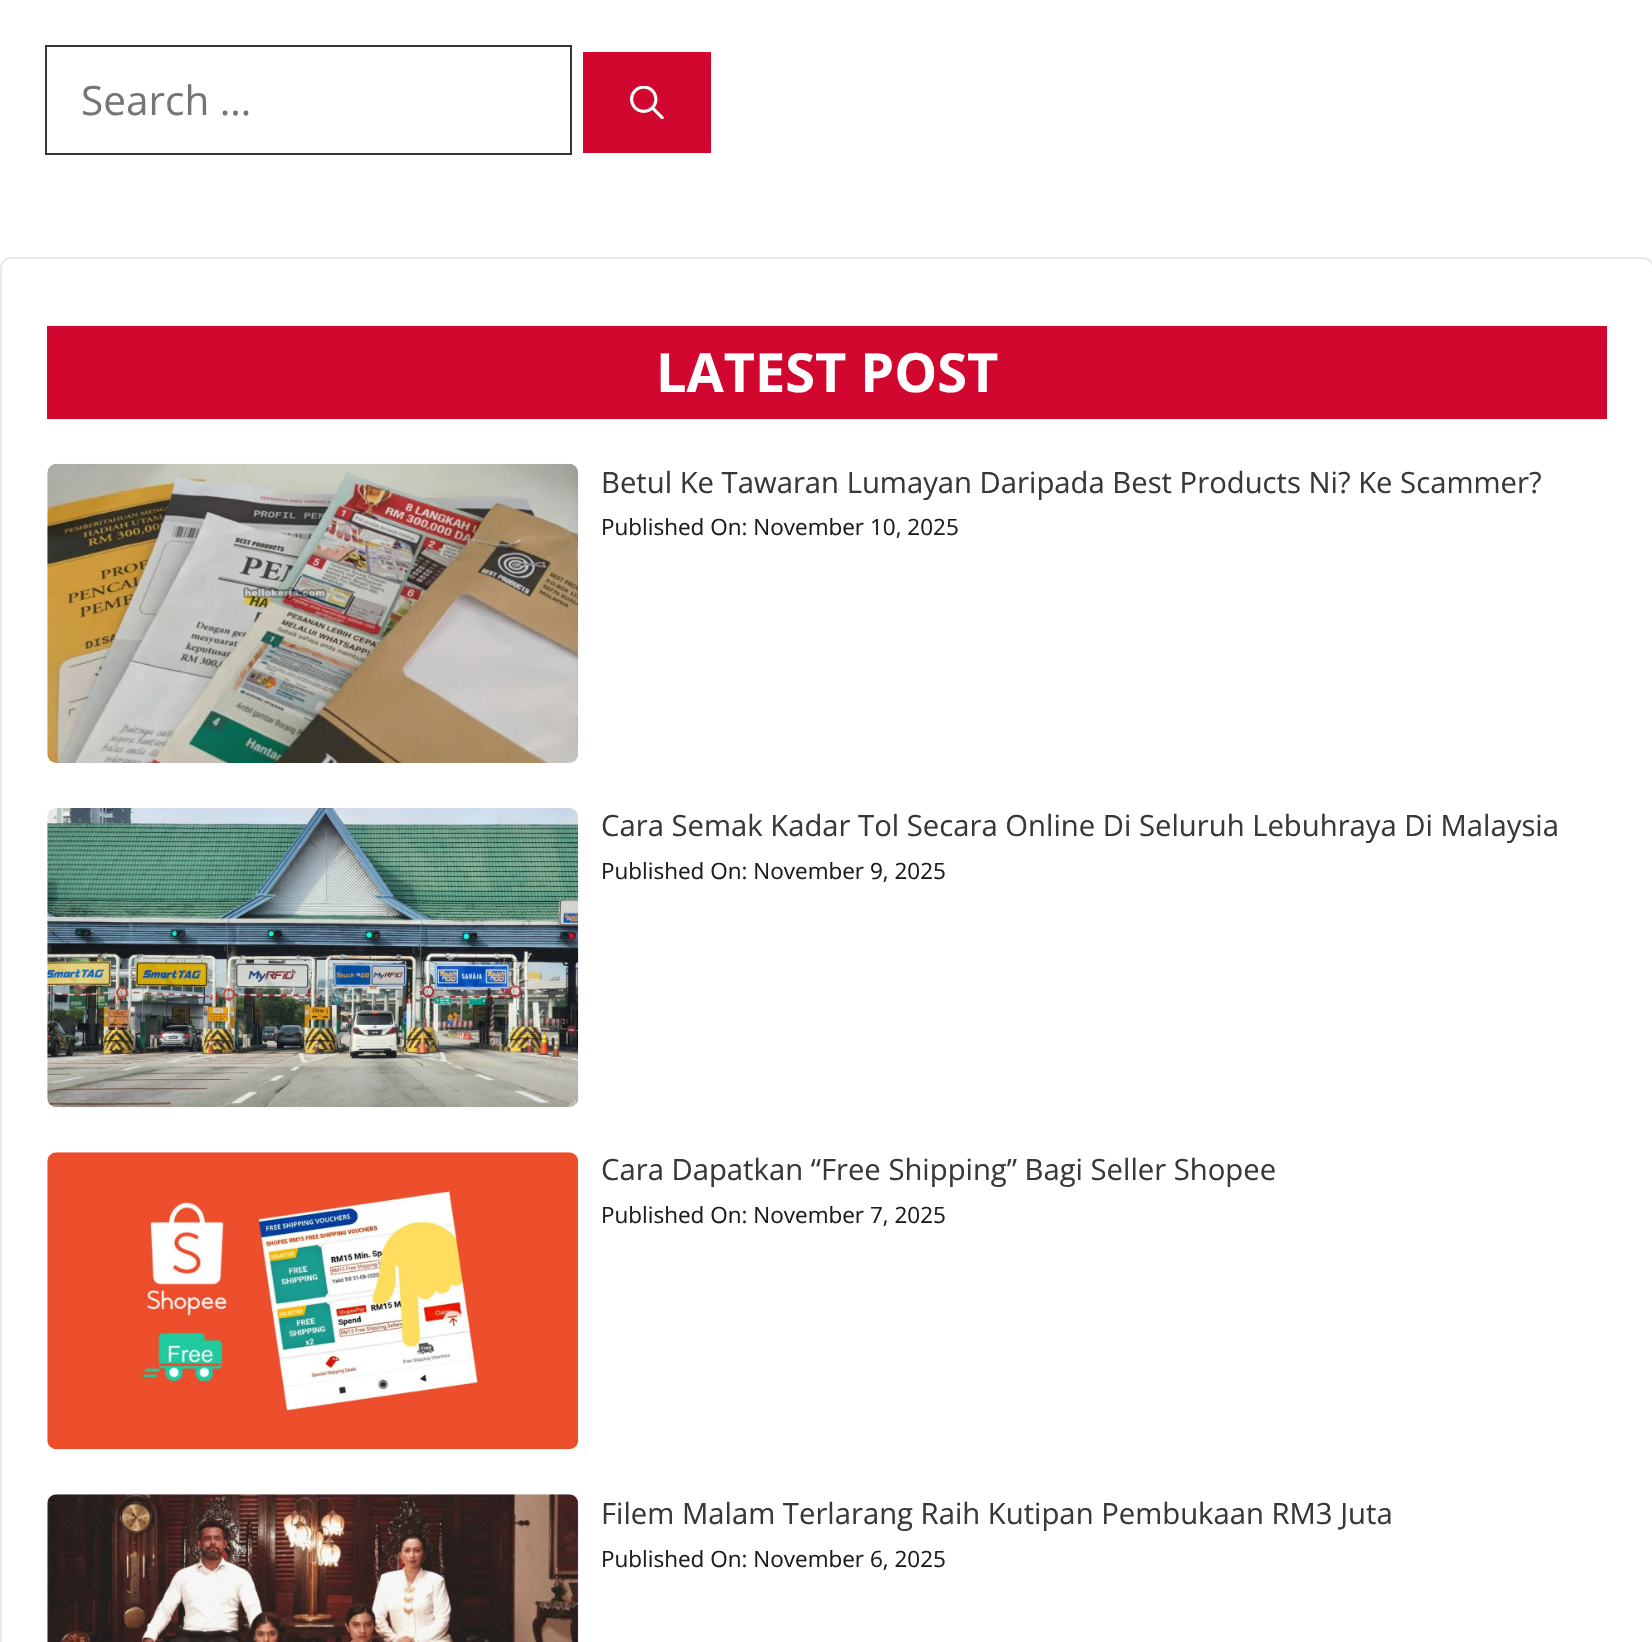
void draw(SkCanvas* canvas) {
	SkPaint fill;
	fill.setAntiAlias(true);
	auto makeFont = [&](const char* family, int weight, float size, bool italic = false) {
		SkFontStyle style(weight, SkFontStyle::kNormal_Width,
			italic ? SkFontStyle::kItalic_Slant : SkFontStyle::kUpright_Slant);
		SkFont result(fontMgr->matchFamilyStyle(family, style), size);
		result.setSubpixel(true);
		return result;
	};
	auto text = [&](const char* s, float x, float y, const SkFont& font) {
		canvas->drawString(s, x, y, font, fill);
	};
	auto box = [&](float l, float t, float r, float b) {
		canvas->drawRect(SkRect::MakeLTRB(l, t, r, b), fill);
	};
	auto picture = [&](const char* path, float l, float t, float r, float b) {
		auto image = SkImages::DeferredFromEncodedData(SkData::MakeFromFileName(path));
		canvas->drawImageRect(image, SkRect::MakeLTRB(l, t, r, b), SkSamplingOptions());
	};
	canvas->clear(0xFFFFFFFF);
	fill.setStyle(SkPaint::kStroke_Style);
	fill.setStrokeWidth(2);
	fill.setColor(0xFF383838);
	canvas->drawRect(SkRect::MakeLTRB(46, 46, 571, 154), fill);
	fill.setStyle(SkPaint::kFill_Style);
	fill.setColor(0xFFD1072F);
	box(583, 52, 711, 153);
	picture("image0.png", 630, 86, 664, 119);
	fill.setStyle(SkPaint::kStroke_Style);
	fill.setColor(0xFFE9E9E9);
	canvas->drawRoundRect(SkRect::MakeLTRB(1, 258, 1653, 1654), 10, 10, fill);
	fill.setStyle(SkPaint::kFill_Style);
	fill.setColor(0xFFD1072F);
	box(47, 326, 1607, 419);
	picture("image1.png", 47, 463, 579, 763);
	picture("image2.png", 47, 808, 579, 1108);
	picture("image3.png", 47, 1152, 579, 1450);
	picture("image4.png", 47, 1494, 579, 1642);
	auto font1 = makeFont("Open Sans", 400, 40.5f);
	fill.setColor(0xFF757575);
	text("Search …", 81, 115, font1);
	auto font2 = makeFont("Open Sans", 700, 54);
	fill.setColor(0xFFFFFFFF);
	text("LATEST POST", 656, 392, font2);
	auto font3 = makeFont("Open Sans", 400, 29.25f);
	fill.setColor(0xFF383838);
	text("Betul Ke Tawaran Lumayan Daripada Best Products Ni? Ke Scammer?", 601, 493, font3);
	auto font4 = makeFont("Open Sans", 400, 22.5f);
	fill.setColor(0xFF1D1D1D);
	text("Published On: November 10, 2025", 601, 535, font4);
	fill.setColor(0xFF383838);
	text("Cara Semak Kadar Tol Secara Online Di Seluruh Lebuhraya Di Malaysia", 601, 836, font3);
	fill.setColor(0xFF1D1D1D);
	text("Published On: November 9, 2025", 601, 879, font4);
	fill.setColor(0xFF383838);
	text("Cara Dapatkan “Free Shipping” Bagi Seller Shopee", 601, 1180, font3);
	fill.setColor(0xFF1D1D1D);
	text("Published On: November 7, 2025", 601, 1223, font4);
	fill.setColor(0xFF383838);
	text("Filem Malam Terlarang Raih Kutipan Pembukaan RM3 Juta", 601, 1524, font3);
	fill.setColor(0xFF1D1D1D);
	text("Published On: November 6, 2025", 601, 1567, font4);
}
